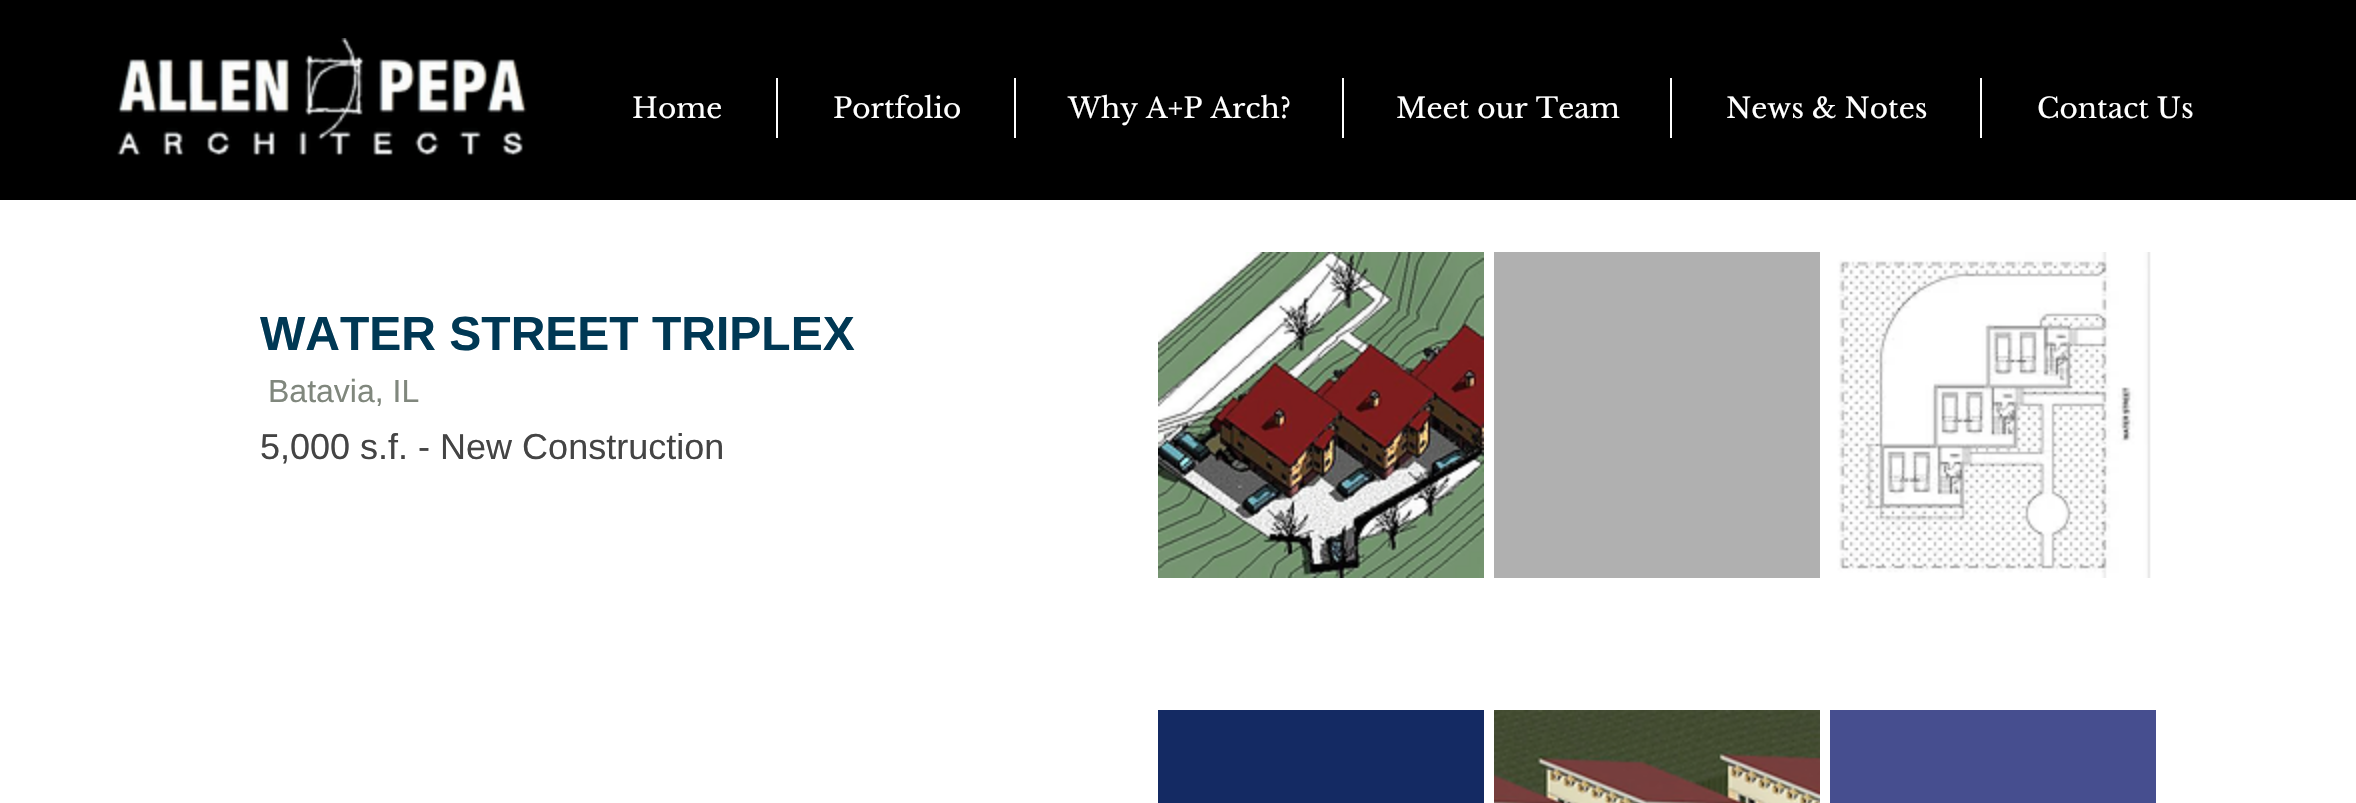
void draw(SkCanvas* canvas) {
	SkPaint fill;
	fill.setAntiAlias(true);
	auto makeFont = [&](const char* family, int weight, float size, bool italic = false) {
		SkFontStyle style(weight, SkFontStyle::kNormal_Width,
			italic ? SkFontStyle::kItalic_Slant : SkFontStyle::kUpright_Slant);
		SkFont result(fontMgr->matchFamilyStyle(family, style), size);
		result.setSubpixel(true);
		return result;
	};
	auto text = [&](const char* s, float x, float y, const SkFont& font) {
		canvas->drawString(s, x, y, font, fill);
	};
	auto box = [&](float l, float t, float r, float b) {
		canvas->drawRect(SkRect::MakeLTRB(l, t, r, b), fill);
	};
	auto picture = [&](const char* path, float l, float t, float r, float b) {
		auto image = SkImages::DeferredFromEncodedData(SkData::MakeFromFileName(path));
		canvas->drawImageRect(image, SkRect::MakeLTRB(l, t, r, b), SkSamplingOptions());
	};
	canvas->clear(0xFFFFFFFF);
	fill.setColor(0xFF000000);
	box(0, 0, 2356, 200);
	picture("image0.png", 117, 38, 527, 156);
	fill.setColor(0xFFFFFFFF);
	box(776, 78, 778, 138);
	box(1014, 78, 1016, 138);
	box(1342, 78, 1344, 138);
	box(1670, 78, 1672, 138);
	box(1980, 78, 1982, 138);
	picture("image1.png", 1158, 252, 1484, 578);
	fill.setColor(0xFFB0B0B0);
	box(1494, 252, 1820, 578);
	picture("image2.png", 1830, 252, 2156, 578);
	fill.setColor(0xFF142A63);
	box(1158, 710, 1484, 803);
	picture("image3.png", 1494, 710, 1820, 803);
	fill.setColor(0xFF464E8F);
	box(1830, 710, 2156, 803);
	auto font1 = makeFont("Libre Baskerville", 400, 28);
	fill.setColor(0xFFFFFFFF);
	text("Home", 632, 118, font1);
	text("Portfolio", 833, 118, font1);
	text("Why A+P Arch?", 1068, 118, font1);
	text("Meet our Team", 1396, 118, font1);
	text("News & Notes", 1726, 118, font1);
	text("Contact Us", 2037, 118, font1);
	auto font2 = makeFont("Liberation Sans", 700, 48);
	fill.setColor(0xFF003854);
	text("WATER STREET TRIPLEX", 260, 350, font2);
	auto font3 = makeFont("Liberation Sans", 400, 32);
	fill.setColor(0xFF80877D);
	text("Batavia, IL", 268, 402, font3);
	auto font4 = makeFont("Liberation Sans", 400, 36);
	fill.setColor(0xFF444444);
	text("5,000 s.f. - New Construction", 260, 459, font4);
}
